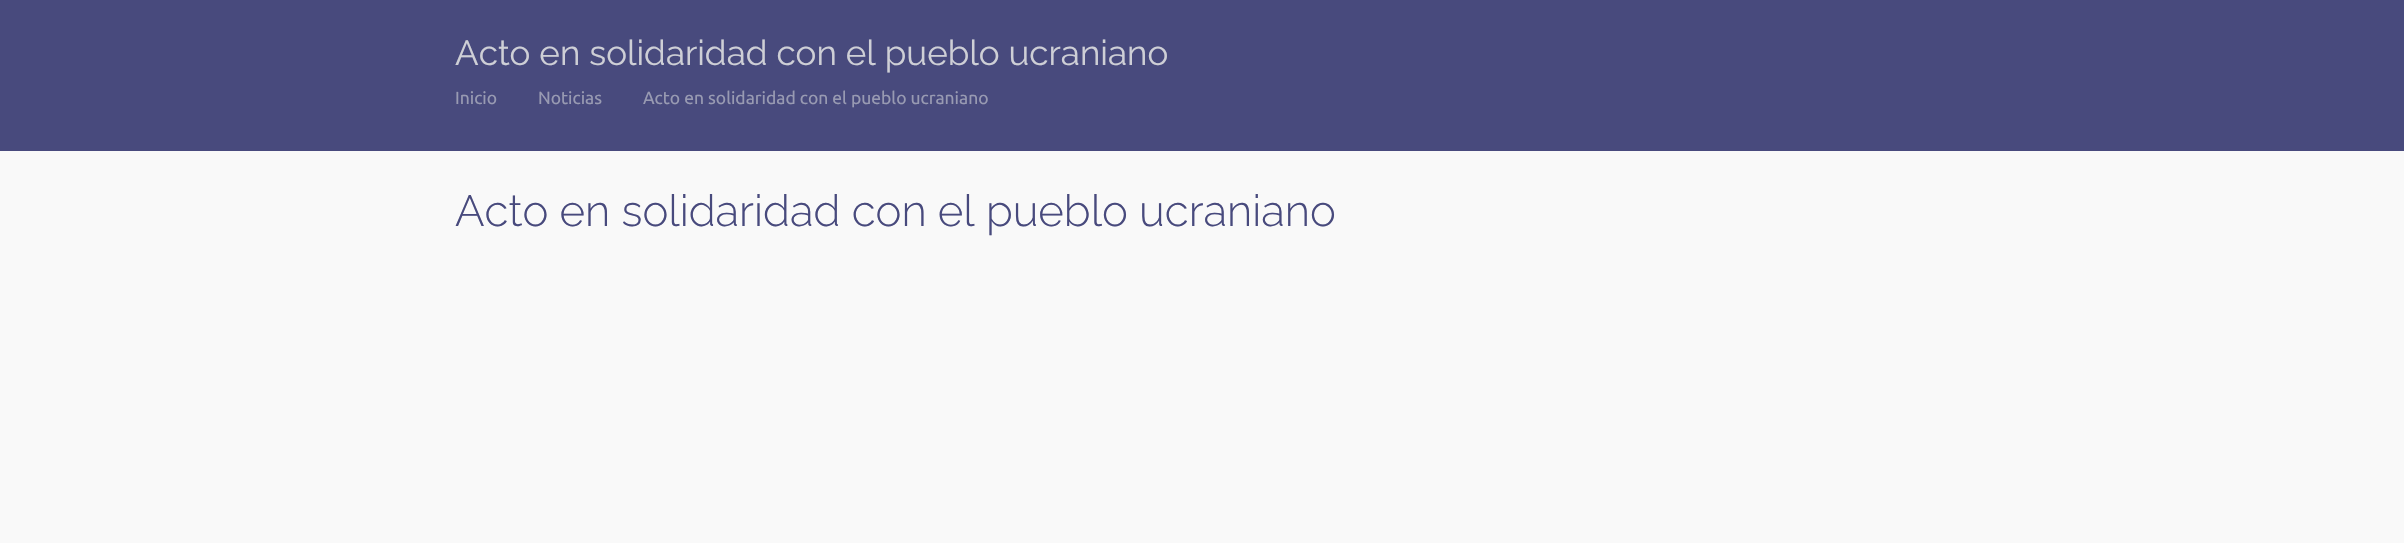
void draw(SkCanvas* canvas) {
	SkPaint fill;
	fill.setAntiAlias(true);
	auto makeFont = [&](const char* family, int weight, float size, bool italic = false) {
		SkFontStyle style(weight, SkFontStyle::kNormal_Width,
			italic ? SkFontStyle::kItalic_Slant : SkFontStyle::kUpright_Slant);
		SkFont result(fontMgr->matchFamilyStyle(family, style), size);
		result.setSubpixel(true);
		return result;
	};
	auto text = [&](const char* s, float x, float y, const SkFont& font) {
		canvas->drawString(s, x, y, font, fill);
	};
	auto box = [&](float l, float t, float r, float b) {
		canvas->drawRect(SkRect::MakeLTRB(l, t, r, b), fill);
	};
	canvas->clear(0xFFF9F9F9);
	fill.setColor(0xFF484A7D);
	box(0, 0, 2404, 151);
	auto font1 = makeFont("Raleway", 400, 35);
	fill.setColor(0xFFCECFD6);
	text("Acto en solidaridad con el pueblo ucraniano", 455, 65, font1);
	auto font2 = makeFont("Ubuntu", 400, 17.5f);
	fill.setColor(0xFF989AB2);
	text("Inicio", 455, 104, font2);
	text("Noticias", 538, 104, font2);
	text("Acto en solidaridad con el pueblo ucraniano", 643, 104, font2);
	auto font3 = makeFont("Raleway", 300, 43.75f);
	fill.setColor(0xFF484A7D);
	text("Acto en solidaridad con el pueblo ucraniano", 455, 226, font3);
}
